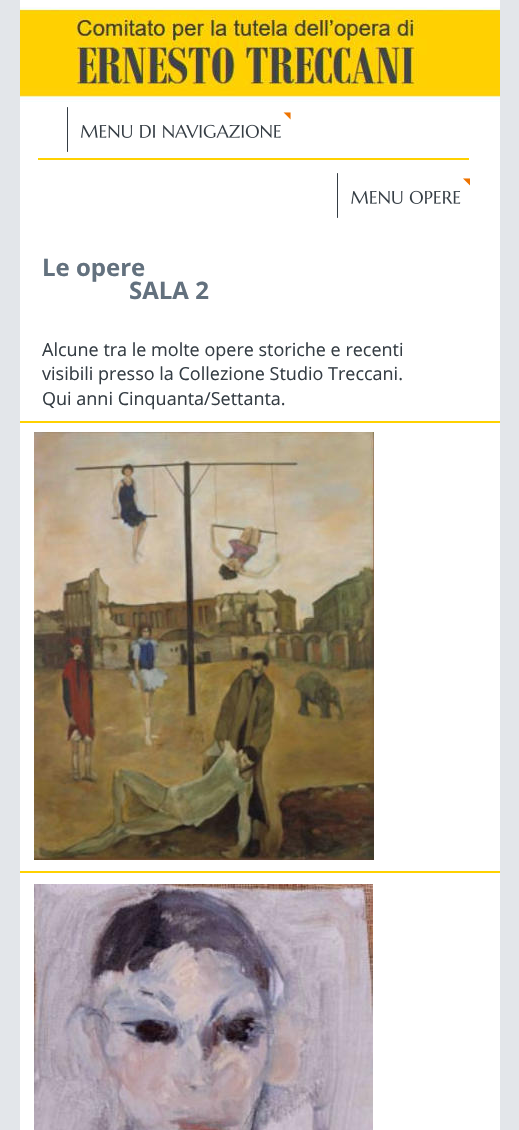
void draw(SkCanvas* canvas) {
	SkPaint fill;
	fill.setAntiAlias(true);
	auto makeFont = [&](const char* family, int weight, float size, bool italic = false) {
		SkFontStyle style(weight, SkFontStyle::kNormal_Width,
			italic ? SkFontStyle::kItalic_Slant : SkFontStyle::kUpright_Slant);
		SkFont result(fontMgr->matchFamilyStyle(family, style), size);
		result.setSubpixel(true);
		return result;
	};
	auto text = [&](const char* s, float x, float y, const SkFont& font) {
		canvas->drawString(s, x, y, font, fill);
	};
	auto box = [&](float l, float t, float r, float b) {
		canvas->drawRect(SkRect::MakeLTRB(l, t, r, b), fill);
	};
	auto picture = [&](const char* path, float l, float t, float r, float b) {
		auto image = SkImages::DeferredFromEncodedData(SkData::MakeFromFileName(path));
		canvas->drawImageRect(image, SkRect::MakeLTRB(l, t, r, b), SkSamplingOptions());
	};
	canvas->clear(0xFFE3E6EA);
	fill.setColor(0xFFFFFFFF);
	box(20, 0, 500, 1130);
	picture("image0.png", 67, 107, 291, 152);
	picture("image1.png", 337, 173, 470, 218);
	picture("image2.png", 20, 7, 500, 102);
	fill.setColor(0xFFFFD100);
	box(38, 158, 469, 160);
	box(20, 421, 500, 423);
	picture("image3.png", 34, 432, 374, 860);
	box(20, 871, 500, 873);
	picture("image4.png", 34, 884, 373, 1130);
	auto font1 = makeFont("Open Sans", 700, 24);
	fill.setColor(0xFF63717E);
	text("Le opere", 42, 276, font1);
	text("SALA 2", 129, 299, font1);
	auto font2 = makeFont("Open Sans", 400, 18);
	fill.setColor(0xFF353D44);
	text("Alcune tra le molte opere storiche e recenti", 42, 356, font2);
	text("visibili presso la Collezione Studio Treccani.", 42, 380, font2);
	text("Qui anni Cinquanta/Settanta.", 42, 405, font2);
}
